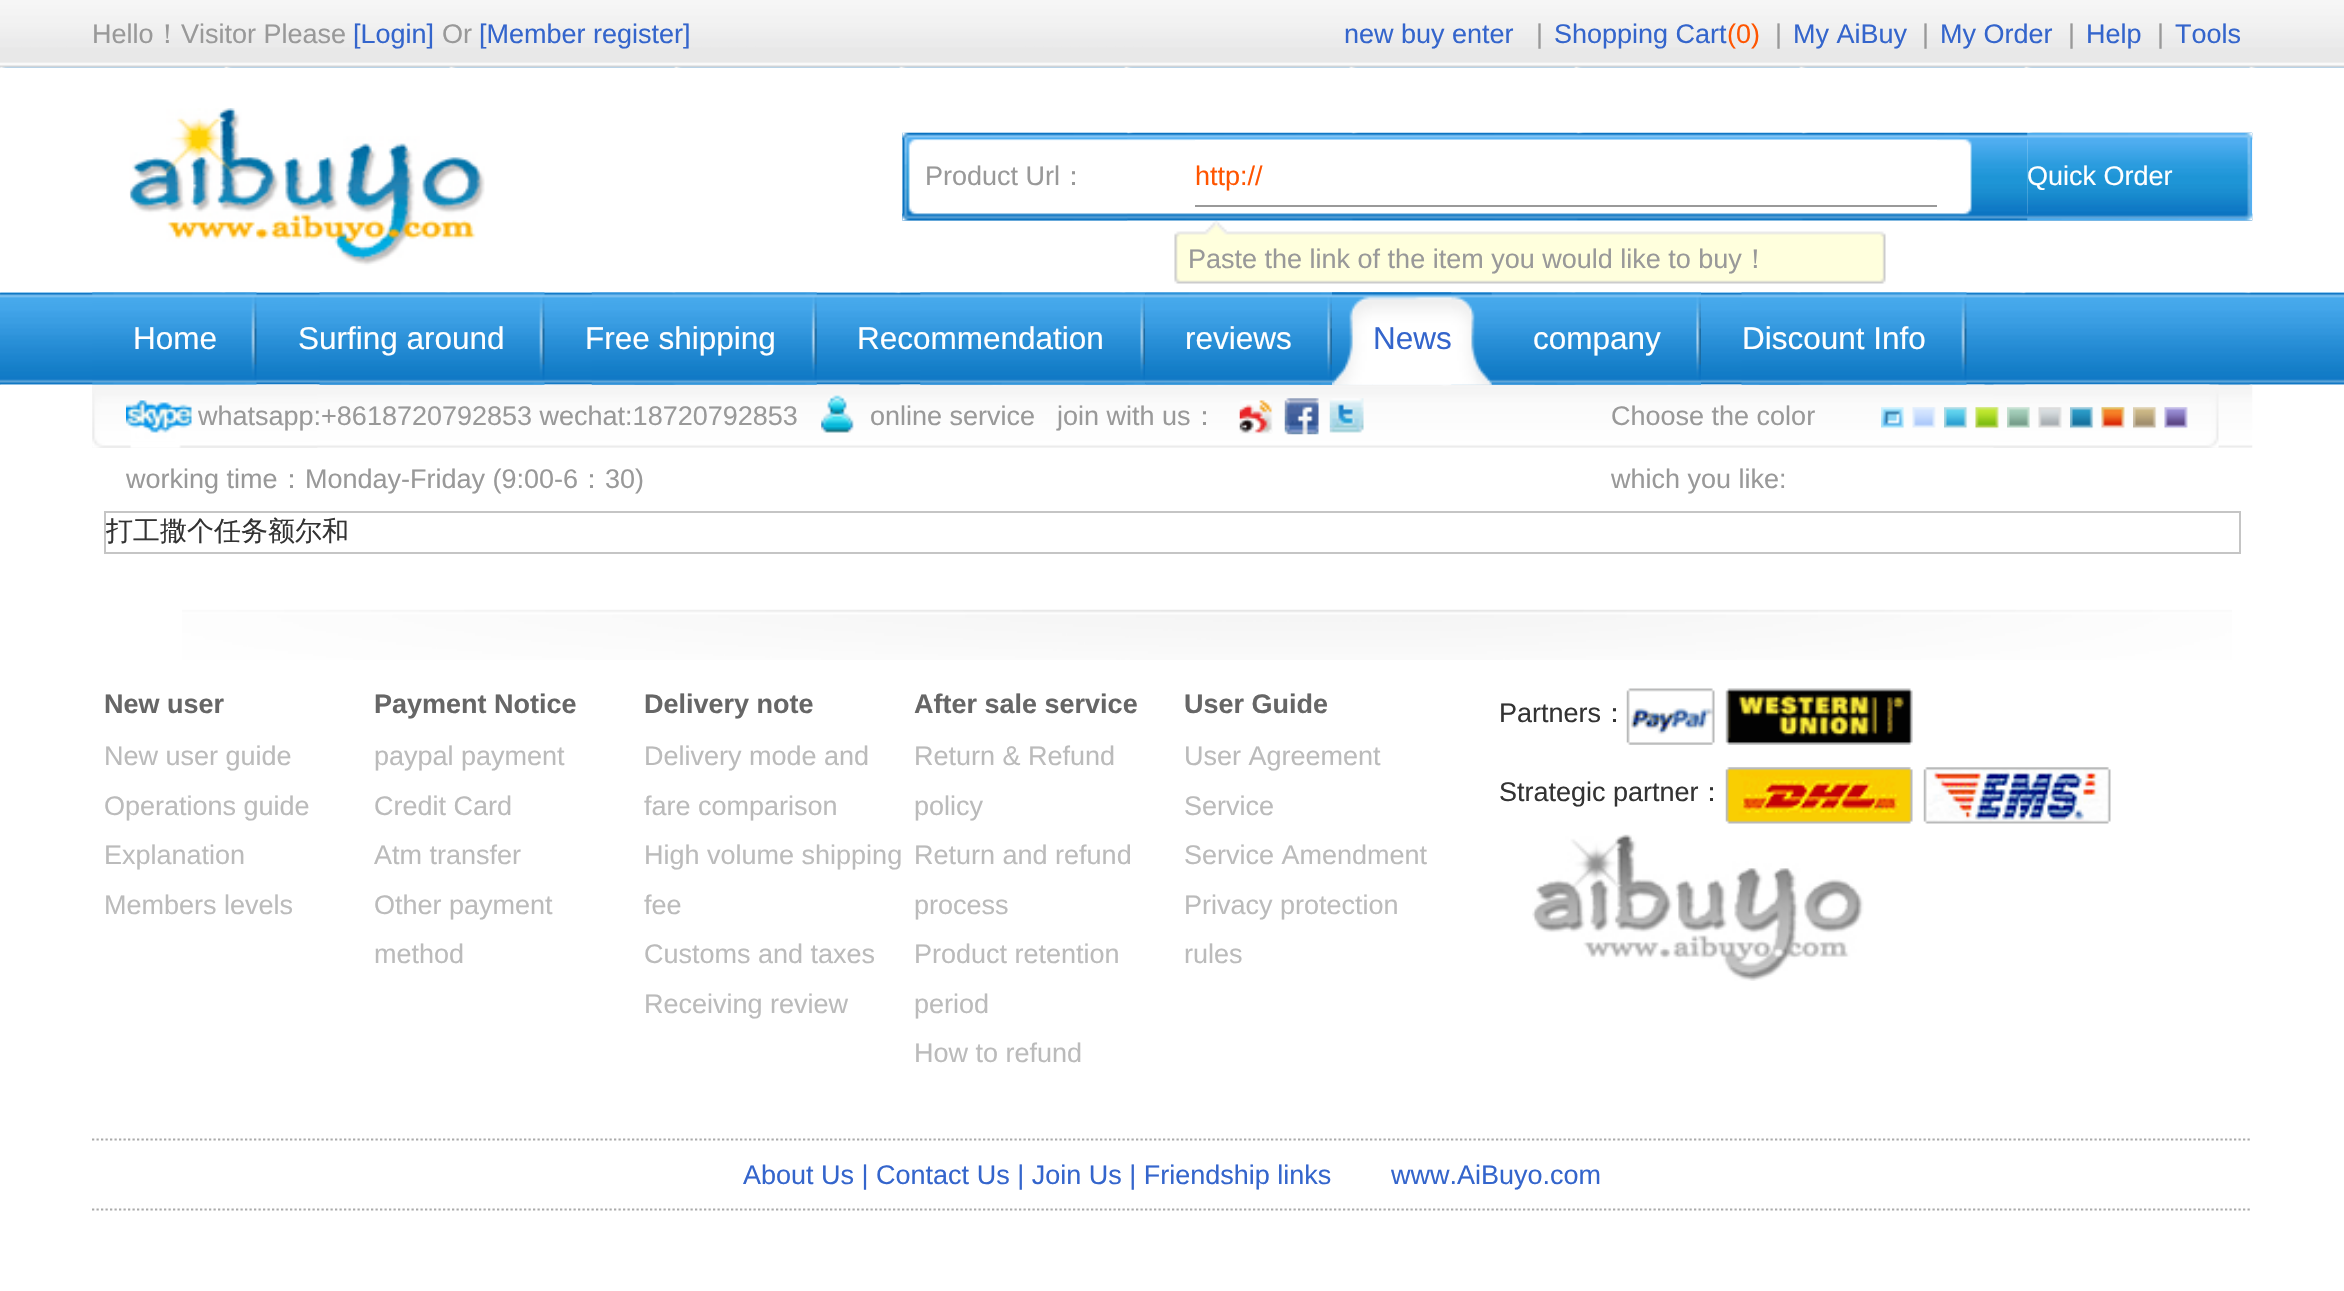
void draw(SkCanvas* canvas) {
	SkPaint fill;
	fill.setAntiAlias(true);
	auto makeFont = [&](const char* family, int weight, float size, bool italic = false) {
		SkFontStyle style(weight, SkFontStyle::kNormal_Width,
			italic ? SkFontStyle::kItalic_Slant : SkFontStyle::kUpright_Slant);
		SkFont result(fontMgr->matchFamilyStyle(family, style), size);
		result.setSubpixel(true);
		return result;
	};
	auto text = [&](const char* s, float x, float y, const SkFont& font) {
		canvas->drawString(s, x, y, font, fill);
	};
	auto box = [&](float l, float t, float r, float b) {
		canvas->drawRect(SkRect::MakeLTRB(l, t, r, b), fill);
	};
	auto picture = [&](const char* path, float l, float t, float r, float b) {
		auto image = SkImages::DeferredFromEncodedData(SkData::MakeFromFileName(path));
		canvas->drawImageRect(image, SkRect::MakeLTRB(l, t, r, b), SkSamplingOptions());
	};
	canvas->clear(0xFFFFFFFF);
	picture("image0.png", 0, 0, 2344, 68);
	picture("image1.png", 129, 108, 485, 266);
	picture("image6.png", 1174, 220, 1886, 284);
	picture("image2.png", 902, 132, 2253, 221);
	picture("image3.png", 902, 132, 1128, 221);
	picture("image4.png", 1959, 132, 2028, 221);
	fill.setColor(0xFFFFFFFF);
	box(1195, 140, 1937, 141);
	fill.setColor(0xFF999999);
	box(1195, 205, 1937, 207);
	picture("image5.png", 2027, 132, 2253, 221);
	picture("image7.png", 0, 292, 2344, 385);
	picture("image18.png", 92, 384, 2253, 448);
	picture("image8.png", 92, 292, 257, 385);
	picture("image9.png", 319, 292, 545, 385);
	picture("image10.png", 591, 292, 817, 385);
	picture("image11.png", 920, 292, 1146, 385);
	picture("image12.png", 1145, 292, 1332, 385);
	picture("image13.png", 1332, 292, 1492, 385);
	picture("image14.png", 1332, 292, 1373, 385);
	picture("image15.png", 1372, 292, 1452, 385);
	picture("image16.png", 1491, 292, 1701, 385);
	picture("image17.png", 1741, 292, 1967, 385);
	picture("image19.png", 92, 384, 318, 448);
	picture("image20.png", 126, 399, 192, 448);
	picture("image21.png", 821, 395, 854, 433);
	picture("image22.png", 1239, 400, 1273, 434);
	picture("image23.png", 1284, 398, 1319, 435);
	picture("image24.png", 1329, 398, 1364, 433);
	picture("image25.png", 1993, 384, 2219, 448);
	picture("image26.png", 1881, 407, 1905, 429);
	picture("image27.png", 1912, 407, 1936, 428);
	picture("image28.png", 1944, 407, 1968, 429);
	picture("image29.png", 1975, 407, 1999, 429);
	picture("image30.png", 2007, 407, 2030, 428);
	picture("image31.png", 2038, 407, 2062, 428);
	picture("image32.png", 2070, 407, 2094, 429);
	picture("image33.png", 2101, 407, 2125, 429);
	picture("image34.png", 2133, 407, 2157, 429);
	picture("image35.png", 2164, 407, 2188, 429);
	fill.setStyle(SkPaint::kStroke_Style);
	fill.setStrokeWidth(2);
	fill.setColor(0xFFC5C5C5);
	canvas->drawRect(SkRect::MakeLTRB(105, 512, 2240, 553), fill);
	picture("image36.png", 182, 609, 2232, 660);
	picture("image37.png", 1626, 688, 1715, 745);
	picture("image38.png", 1725, 688, 1913, 745);
	picture("image39.png", 1725, 767, 1913, 824);
	picture("image40.png", 1923, 767, 2111, 824);
	picture("image41.png", 1532, 834, 1864, 981);
	fill.setStrokeWidth(2.2f);
	fill.setColor(0xFFAAAAAA);
	fill.setPathEffect(SkDashPathEffect::Make({{2.25f, 2.25f}}, 0));
	canvas->drawPath(SkPathBuilder().moveTo(92, 1139.5f).lineTo(2252, 1139.5f).detach(), fill);
	fill.setPathEffect(nullptr);
	fill.setPathEffect(SkDashPathEffect::Make({{2.25f, 2.25f}}, 0));
	canvas->drawPath(SkPathBuilder().moveTo(92, 1209.5f).lineTo(2252, 1209.5f).detach(), fill);
	fill.setPathEffect(nullptr);
	auto font1 = makeFont("Liberation Sans", 400, 27);
	fill.setStyle(SkPaint::kFill_Style);
	fill.setColor(0xFF999999);
	text("Hello", 92, 43, font1);
	auto font2 = makeFont("WenQuanYi Zen Hei", 500, 27);
	text("！", 154, 43, font2);
	text("Visitor Please", 181, 43, font1);
	fill.setColor(0xFF3465CC);
	text("[Login]", 353, 43, font1);
	fill.setColor(0xFF999999);
	text("Or", 442, 43, font1);
	fill.setColor(0xFF3465CC);
	text("[Member register]", 479, 43, font1);
	text("new buy enter", 1344, 43, font1);
	fill.setColor(0xFF999999);
	text("|", 1536, 43, font1);
	fill.setColor(0xFF3465CC);
	text("Shopping Cart", 1554, 43, font1);
	fill.setColor(0xFFFF5500);
	text("(0)", 1727, 43, font1);
	fill.setColor(0xFF999999);
	text("|", 1775, 43, font1);
	fill.setColor(0xFF3465CC);
	text("My AiBuy", 1793, 43, font1);
	fill.setColor(0xFF999999);
	text("|", 1922, 43, font1);
	fill.setColor(0xFF3465CC);
	text("My Order", 1940, 43, font1);
	fill.setColor(0xFF999999);
	text("|", 2068, 43, font1);
	fill.setColor(0xFF3465CC);
	text("Help", 2086, 43, font1);
	fill.setColor(0xFF999999);
	text("|", 2157, 43, font1);
	fill.setColor(0xFF3465CC);
	text("Tools", 2175, 43, font1);
	fill.setColor(0xFF999999);
	text("Product Url", 925, 185, font1);
	text("：", 1060, 185, font2);
	fill.setColor(0xFFFF5500);
	text("http://", 1195, 185, font1);
	fill.setColor(0xFFFFFFFF);
	text("Quick Order", 2027, 185, font1);
	fill.setColor(0xFF999999);
	text("Paste the link of the item you would like to buy", 1188, 268, font1);
	text("！", 1742, 268, font2);
	auto font3 = makeFont("Liberation Sans", 400, 31.5f);
	fill.setColor(0xFFFFFFFF);
	text("Home", 133, 349, font3);
	text("Surfing around", 298, 349, font3);
	text("Free shipping", 585, 349, font3);
	text("Recommendation", 857, 349, font3);
	text("reviews", 1185, 349, font3);
	fill.setColor(0xFF3465CC);
	text("News", 1373, 349, font3);
	fill.setColor(0xFFFFFFFF);
	text("company", 1533, 349, font3);
	text("Discount Info", 1742, 349, font3);
	fill.setColor(0xFF999999);
	text("whatsapp:+8618720792853 wechat:18720792853", 198, 425, font1);
	text("online service", 870, 425, font1);
	text("join with us", 1057, 425, font1);
	text("：", 1191, 425, font2);
	text("working time", 126, 488, font1);
	text("：", 278, 488, font2);
	text("Monday-Friday (9:00-6", 305, 488, font1);
	text("：", 578, 488, font2);
	text("30)", 605, 488, font1);
	text("Choose the color", 1611, 425, font1);
	text("which you like:", 1611, 488, font1);
	fill.setColor(0xFF333333);
	text("打工撒个任务额尔和", 106, 540, font2);
	auto font4 = makeFont("Liberation Sans", 700, 27);
	fill.setColor(0xFF666666);
	text("New user", 104, 713, font4);
	fill.setColor(0xFFBBBBBB);
	text("New user guide", 104, 765, font1);
	text("Operations guide", 104, 815, font1);
	text("Explanation", 104, 864, font1);
	text("Members levels", 104, 914, font1);
	fill.setColor(0xFF666666);
	text("Payment Notice", 374, 713, font4);
	fill.setColor(0xFFBBBBBB);
	text("paypal payment", 374, 765, font1);
	text("Credit Card", 374, 815, font1);
	text("Atm transfer", 374, 864, font1);
	text("Other payment", 374, 914, font1);
	text("method", 374, 963, font1);
	fill.setColor(0xFF666666);
	text("Delivery note", 644, 713, font4);
	fill.setColor(0xFFBBBBBB);
	text("Delivery mode and", 644, 765, font1);
	text("fare comparison", 644, 815, font1);
	text("High volume shipping", 644, 864, font1);
	text("fee", 644, 914, font1);
	text("Customs and taxes", 644, 963, font1);
	text("Receiving review", 644, 1013, font1);
	fill.setColor(0xFF666666);
	text("After sale service", 914, 713, font4);
	fill.setColor(0xFFBBBBBB);
	text("Return & Refund", 914, 765, font1);
	text("policy", 914, 815, font1);
	text("Return and refund", 914, 864, font1);
	text("process", 914, 914, font1);
	text("Product retention", 914, 963, font1);
	text("period", 914, 1013, font1);
	text("How to refund", 914, 1062, font1);
	fill.setColor(0xFF666666);
	text("User Guide", 1184, 713, font4);
	fill.setColor(0xFFBBBBBB);
	text("User Agreement", 1184, 765, font1);
	text("Service", 1184, 815, font1);
	text("Service Amendment", 1184, 864, font1);
	text("Privacy protection", 1184, 914, font1);
	text("rules", 1184, 963, font1);
	fill.setColor(0xFF333333);
	text("Partners", 1499, 722, font1);
	text("：", 1601, 722, font2);
	text("Strategic partner", 1499, 801, font1);
	text("：", 1698, 801, font2);
	fill.setColor(0xFF3465CC);
	text("About Us | Contact Us | Join Us | Friendship links", 743, 1184, font1);
	text("www.AiBuyo.com", 1391, 1184, font1);
}
